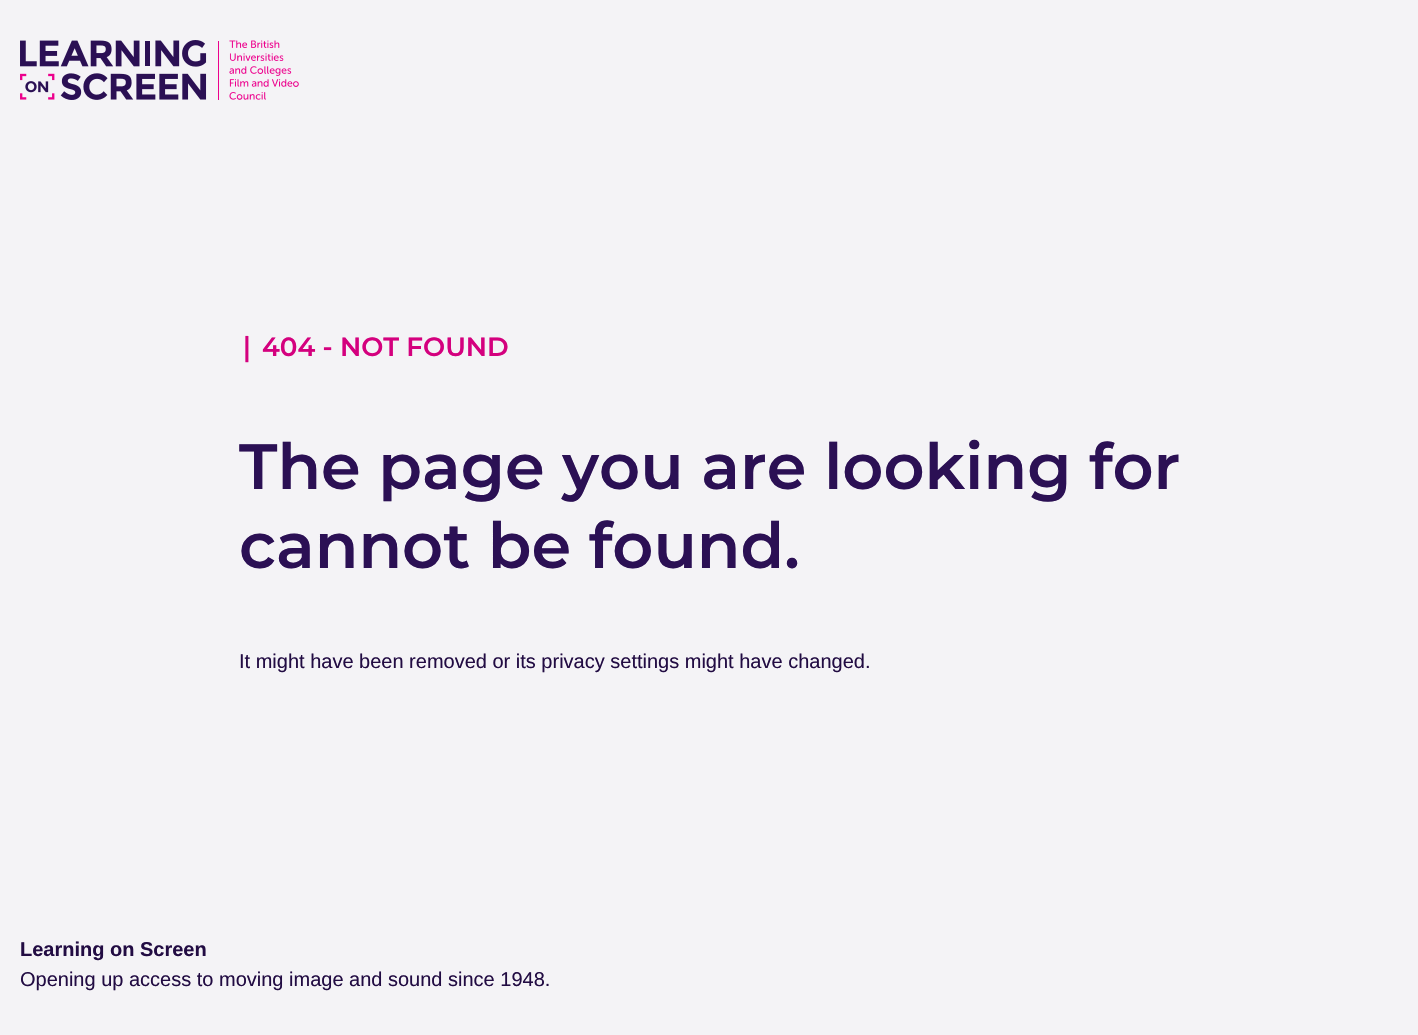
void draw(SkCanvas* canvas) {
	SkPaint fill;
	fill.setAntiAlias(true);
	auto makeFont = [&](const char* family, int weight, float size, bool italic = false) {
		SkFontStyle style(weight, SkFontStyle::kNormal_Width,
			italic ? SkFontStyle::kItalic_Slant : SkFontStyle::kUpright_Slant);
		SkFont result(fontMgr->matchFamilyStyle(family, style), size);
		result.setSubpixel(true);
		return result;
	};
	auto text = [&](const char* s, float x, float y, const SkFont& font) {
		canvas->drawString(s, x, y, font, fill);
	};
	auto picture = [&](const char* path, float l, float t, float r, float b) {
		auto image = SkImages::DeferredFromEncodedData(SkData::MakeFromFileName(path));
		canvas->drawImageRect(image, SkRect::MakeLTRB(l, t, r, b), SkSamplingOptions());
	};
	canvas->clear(0xFFF4F3F6);
	picture("image0.png", 20, 40, 299, 100);
	auto font1 = makeFont("DejaVu Sans Mono", 700, 26.25f);
	fill.setColor(0xFFD4007E);
	text("|", 239, 356, font1);
	auto font2 = makeFont("Montserrat", 600, 26.25f);
	text("404 - NOT FOUND", 262, 356, font2);
	auto font3 = makeFont("Montserrat", 600, 63.75f);
	fill.setColor(0xFF2B1054);
	text("The page you are looking for", 239, 489, font3);
	text("cannot be found.", 239, 568, font3);
	auto font4 = makeFont("Liberation Sans", 400, 20);
	fill.setColor(0xFF220C43);
	text("It might have been removed or its privacy settings might have changed.", 239, 668, font4);
	auto font5 = makeFont("Liberation Sans", 700, 20);
	text("Learning on Screen", 20, 956, font5);
	text("Opening up access to moving image and sound since 1948.", 20, 986, font4);
}
